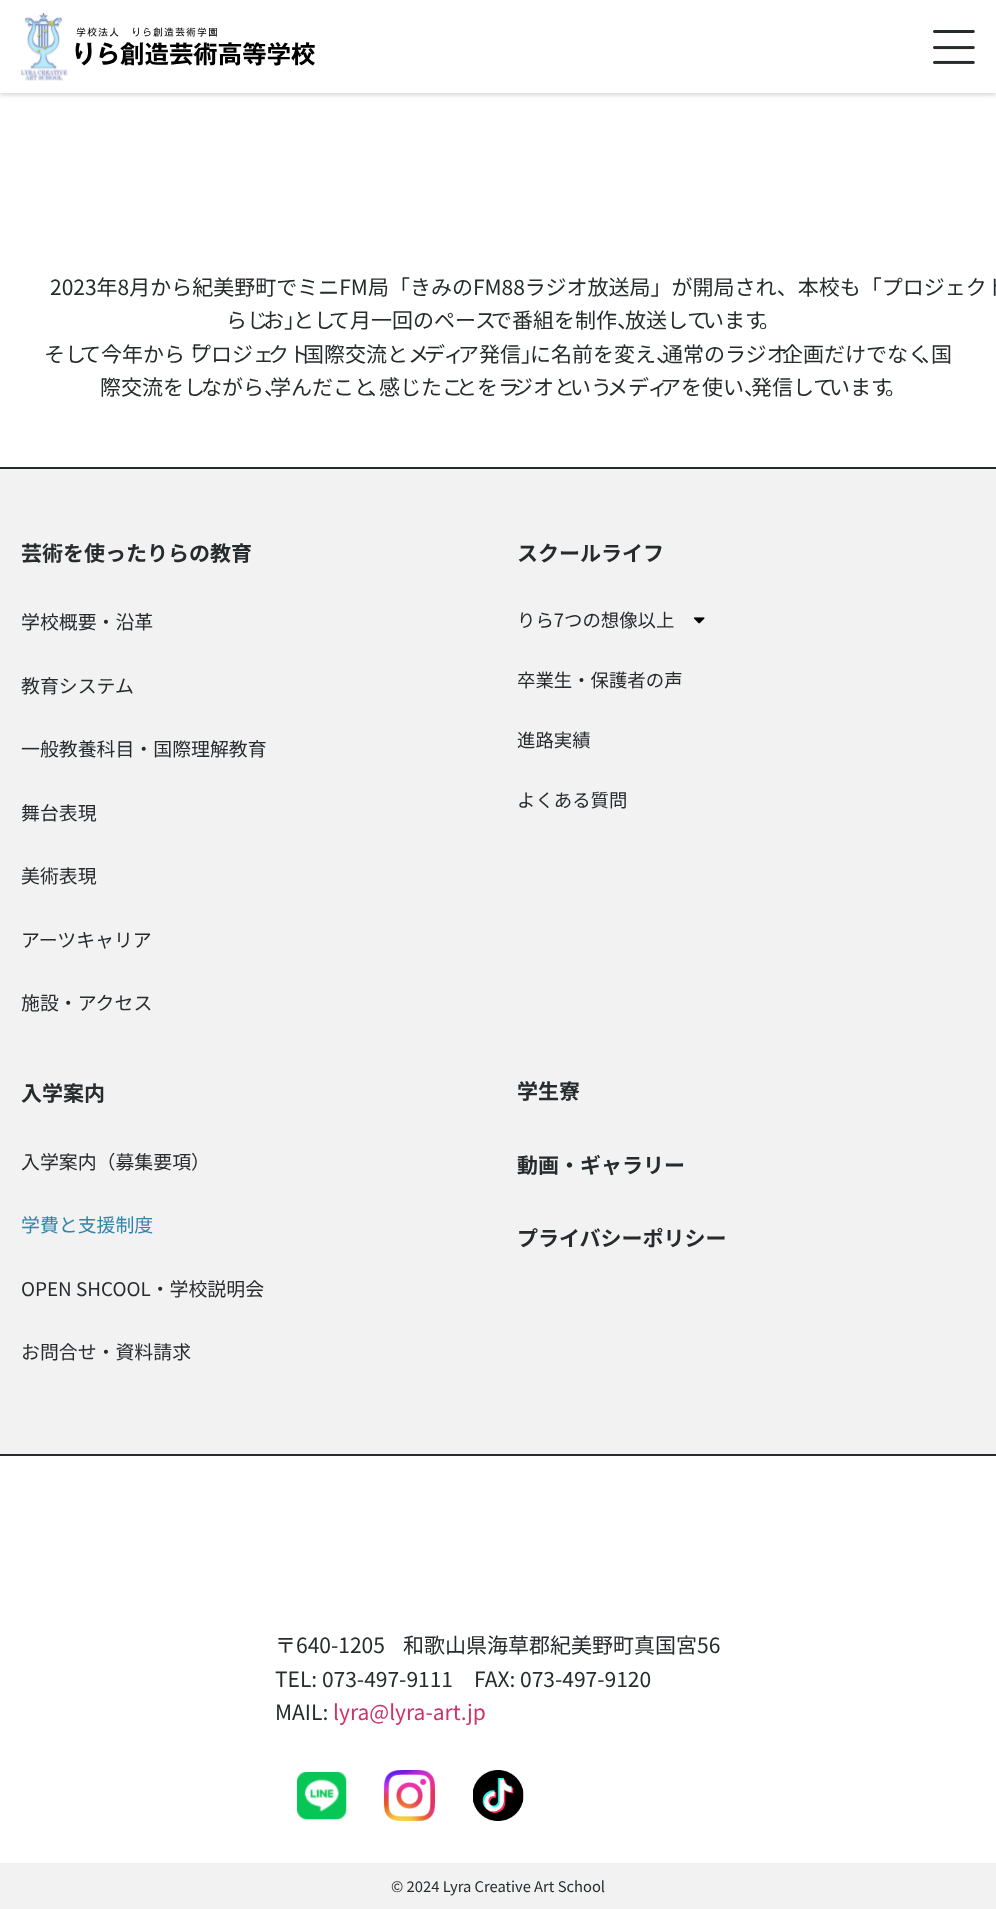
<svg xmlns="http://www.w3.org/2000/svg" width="996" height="1909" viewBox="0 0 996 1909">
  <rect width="100%" height="100%" fill="rgb(255,255,255)"/>
  <rect x="0" y="2" width="996" height="93" fill="rgba(0,0,0,0.16)" filter="blur(2px)"/>
  <rect x="0" y="0" width="996" height="93" fill="rgb(255,255,255)"/>
  <image x="21" y="12" width="294" height="69" href="pic1.png"/>
  <image x="933" y="30" width="42" height="34" href="pic2.png"/>
  <text x="50" y="295" font-family="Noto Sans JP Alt" font-size="21" fill="rgb(38,43,46)">2023年8月から紀美野町でミニFM局「きみのFM88ラジオ放送局」が開局され、本校も「プロジェクトり</text>
  <g font-family="Noto Sans JP" font-size="21" fill="rgb(38,43,46)">
    <text x="226" y="328">らじ</text>
    <text x="263" y="328">お」</text>
    <text x="293" y="328">とし</text>
    <text x="329" y="328">て月一回のペース</text>
    <text x="491" y="328">で番組を制作、</text>
    <text x="625" y="328">放送して</text>
    <text x="703" y="328">います</text>
    <text x="759" y="328">。</text>
    <text x="44" y="362">そし</text>
    <text x="80" y="362">て今年から</text>
    <text x="180" y="362">「</text>
    <text x="190" y="362">プロジェ</text>
    <text x="268" y="362">クト</text>
    <text x="303" y="362">国際交流とメ</text>
    <text x="424" y="362">ディ</text>
    <text x="458" y="362">ア発信」</text>
    <text x="530" y="362">に名前を変え、</text>
    <text x="662" y="362">通常のラジオ</text>
    <text x="782" y="362">企画だけでなく</text>
    <text x="921" y="362">、</text>
    <text x="931" y="362">国</text>
    <text x="100" y="395">際交流をし</text>
    <text x="201" y="395">ながら、</text>
    <text x="270" y="395">学んだこと</text>
    <text x="368" y="395">、</text>
    <text x="379" y="395">感じたこ</text>
    <text x="456" y="395">とをラ</text>
    <text x="512" y="395">ジオと</text>
    <text x="570" y="395">いう</text>
    <text x="607" y="395">メディ</text>
    <text x="660" y="395">アを使い、</text>
    <text x="751" y="395">発信して</text>
    <text x="829" y="395">います</text>
    <text x="885" y="395">。</text>
  </g>
  <rect x="0" y="469" width="996" height="985" fill="rgb(242,242,242)"/>
  <rect x="0" y="467" width="996" height="2" fill="rgb(38,43,46)"/>
  <rect x="0" y="1454" width="996" height="2" fill="rgb(38,43,46)"/>
  <text x="21" y="561" font-family="Noto Sans JP" font-size="21" font-weight="bold" fill="rgb(38,43,46)">芸術を使ったりらの教育</text>
  <g font-family="Noto Sans JP" font-size="18.9" fill="rgb(38,43,46)">
    <text x="21" y="629">学校概要・沿革</text>
    <text x="21" y="693">教育システム</text>
    <text x="21" y="756">一般教養科目・国際理解教育</text>
    <text x="21" y="820">舞台表現</text>
    <text x="21" y="883">美術表現</text>
    <text x="21" y="947">アーツキャリア</text>
    <text x="21" y="1010">施設・アクセス</text>
  </g>
  <text x="517" y="561" font-family="Noto Sans JP" font-size="21" font-weight="bold" fill="rgb(38,43,46)">スクールライフ</text>
  <text x="517" y="627" font-family="Noto Sans JP" font-size="18.4" fill="rgb(38,43,46)">りら7つの想像以上</text>
  <image x="693" y="617" width="12" height="7" href="pic3.png"/>
  <g font-family="Noto Sans JP" font-size="18.4" fill="rgb(38,43,46)">
    <text x="517" y="687">卒業生・保護者の声</text>
    <text x="517" y="747">進路実績</text>
    <text x="517" y="807">よくある質問</text>
  </g>
  <text x="21" y="1101" font-family="Noto Sans JP" font-size="21" font-weight="bold" fill="rgb(38,43,46)">入学案内</text>
  <text x="21" y="1169" font-family="Noto Sans JP" font-size="18.9" fill="rgb(38,43,46)">入学案内（募集要項）</text>
  <text x="21" y="1232" font-family="Noto Sans JP" font-size="18.9" fill="rgb(46,133,173)">学費と支援制度</text>
  <g font-family="Noto Sans JP" font-size="18.9" fill="rgb(38,43,46)">
    <text x="21" y="1296">OPEN SHCOOL・学校説明会</text>
    <text x="21" y="1359">お問合せ・資料請求</text>
  </g>
  <g font-family="Noto Sans JP" font-size="21" font-weight="bold" fill="rgb(38,43,46)">
    <text x="517" y="1099">学生寮</text>
    <text x="517" y="1173">動画・ギャラリー</text>
    <text x="517" y="1246">プライバシーポリシー</text>
  </g>
  <text x="275" y="1653" font-family="Noto Sans JP Alt" font-size="21" fill="rgb(38,43,46)">〒640-1205</text>
  <g font-family="Noto Sans JP" font-size="21" fill="rgb(38,43,46)">
    <text x="403" y="1653">和歌山県海草郡紀美野町真国宮56</text>
    <text x="275" y="1687">TEL: 073-497-9111</text>
    <text x="474" y="1687">FAX: 073-497-9120</text>
    <text x="275" y="1720">MAIL:</text>
  </g>
  <text x="333" y="1720" font-family="Noto Sans JP" font-size="21" fill="rgb(204,51,102)">lyra@lyra-art.jp</text>
  <image x="297" y="1772" width="50" height="48" href="pic4.png"/>
  <image x="384" y="1770" width="51" height="51" href="pic5.png"/>
  <image x="473" y="1770" width="51" height="51" href="pic6.png"/>
  <rect x="0" y="1863" width="996" height="46" fill="rgb(242,242,242)"/>
  <text x="391" y="1892" font-family="Noto Sans JP" font-size="14.75" fill="rgb(38,43,46)">© 2024 Lyra Creative Art School</text>
</svg>
